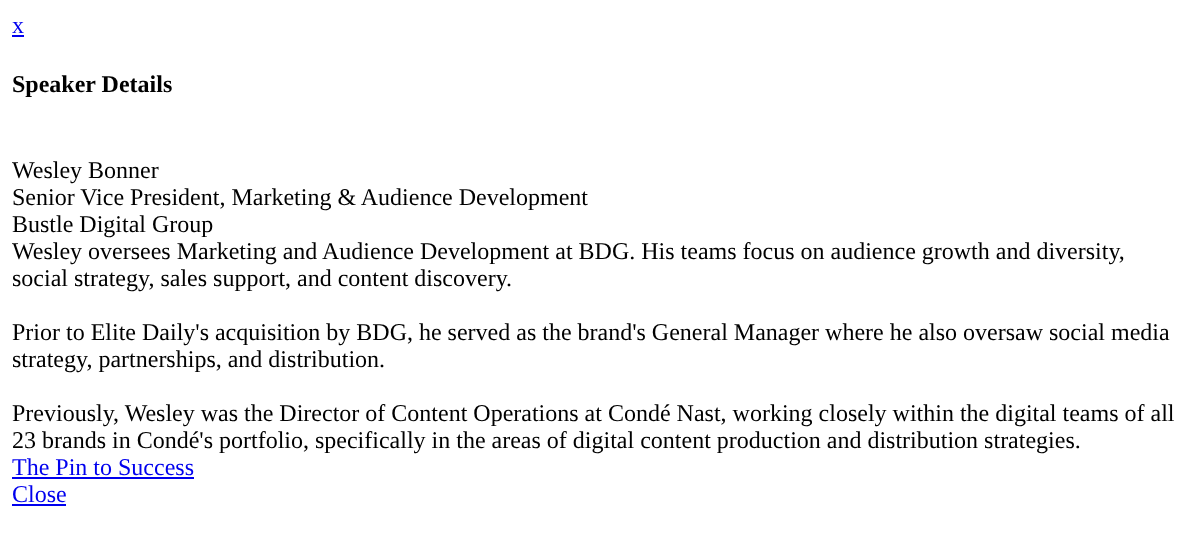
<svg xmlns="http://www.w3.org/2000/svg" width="1187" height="546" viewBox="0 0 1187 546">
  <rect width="100%" height="100%" fill="rgb(255,255,255)"/>
  <text x="12" y="33" font-family="Liberation Serif" font-size="24" fill="rgb(0,0,238)">x</text>
  <rect x="12" y="35" width="12" height="2" fill="rgb(0,0,238)"/>
  <text x="12" y="92" font-family="Liberation Serif" font-size="24" font-weight="bold" fill="rgb(0,0,0)">Speaker Details</text>
  <g font-family="Liberation Serif" font-size="24" fill="rgb(0,0,0)">
    <text>
      <tspan x="12" y="178">Wesley Bonner</tspan>
      <tspan x="12" y="205">Senior Vice President, Marketing &amp; Audience Development</tspan>
      <tspan x="12" y="232">Bustle Digital Group</tspan>
      <tspan x="12" y="259">Wesley oversees Marketing and Audience Development at BDG. His teams focus on audience growth and diversity,</tspan>
      <tspan x="12" y="286">social strategy, sales support, and content discovery.</tspan>
    </text>
    <text>
      <tspan x="12" y="340">Prior to Elite Daily's acquisition by BDG, he served as the brand's General Manager where he also oversaw social media</tspan>
      <tspan x="12" y="367">strategy, partnerships, and distribution.</tspan>
    </text>
    <text>
      <tspan x="12" y="421">Previously, Wesley was the Director of Content Operations at Condé Nast, working closely within the digital teams of all</tspan>
      <tspan x="12" y="448">23 brands in Condé's portfolio, specifically in the areas of digital content production and distribution strategies.</tspan>
    </text>
  </g>
  <text x="12" y="475" font-family="Liberation Serif" font-size="24" fill="rgb(0,0,238)">The Pin to Success</text>
  <rect x="12" y="477" width="182" height="2" fill="rgb(0,0,238)"/>
  <text x="12" y="502" font-family="Liberation Serif" font-size="24" fill="rgb(0,0,238)">Close</text>
  <rect x="12" y="504" width="54" height="2" fill="rgb(0,0,238)"/>
</svg>
